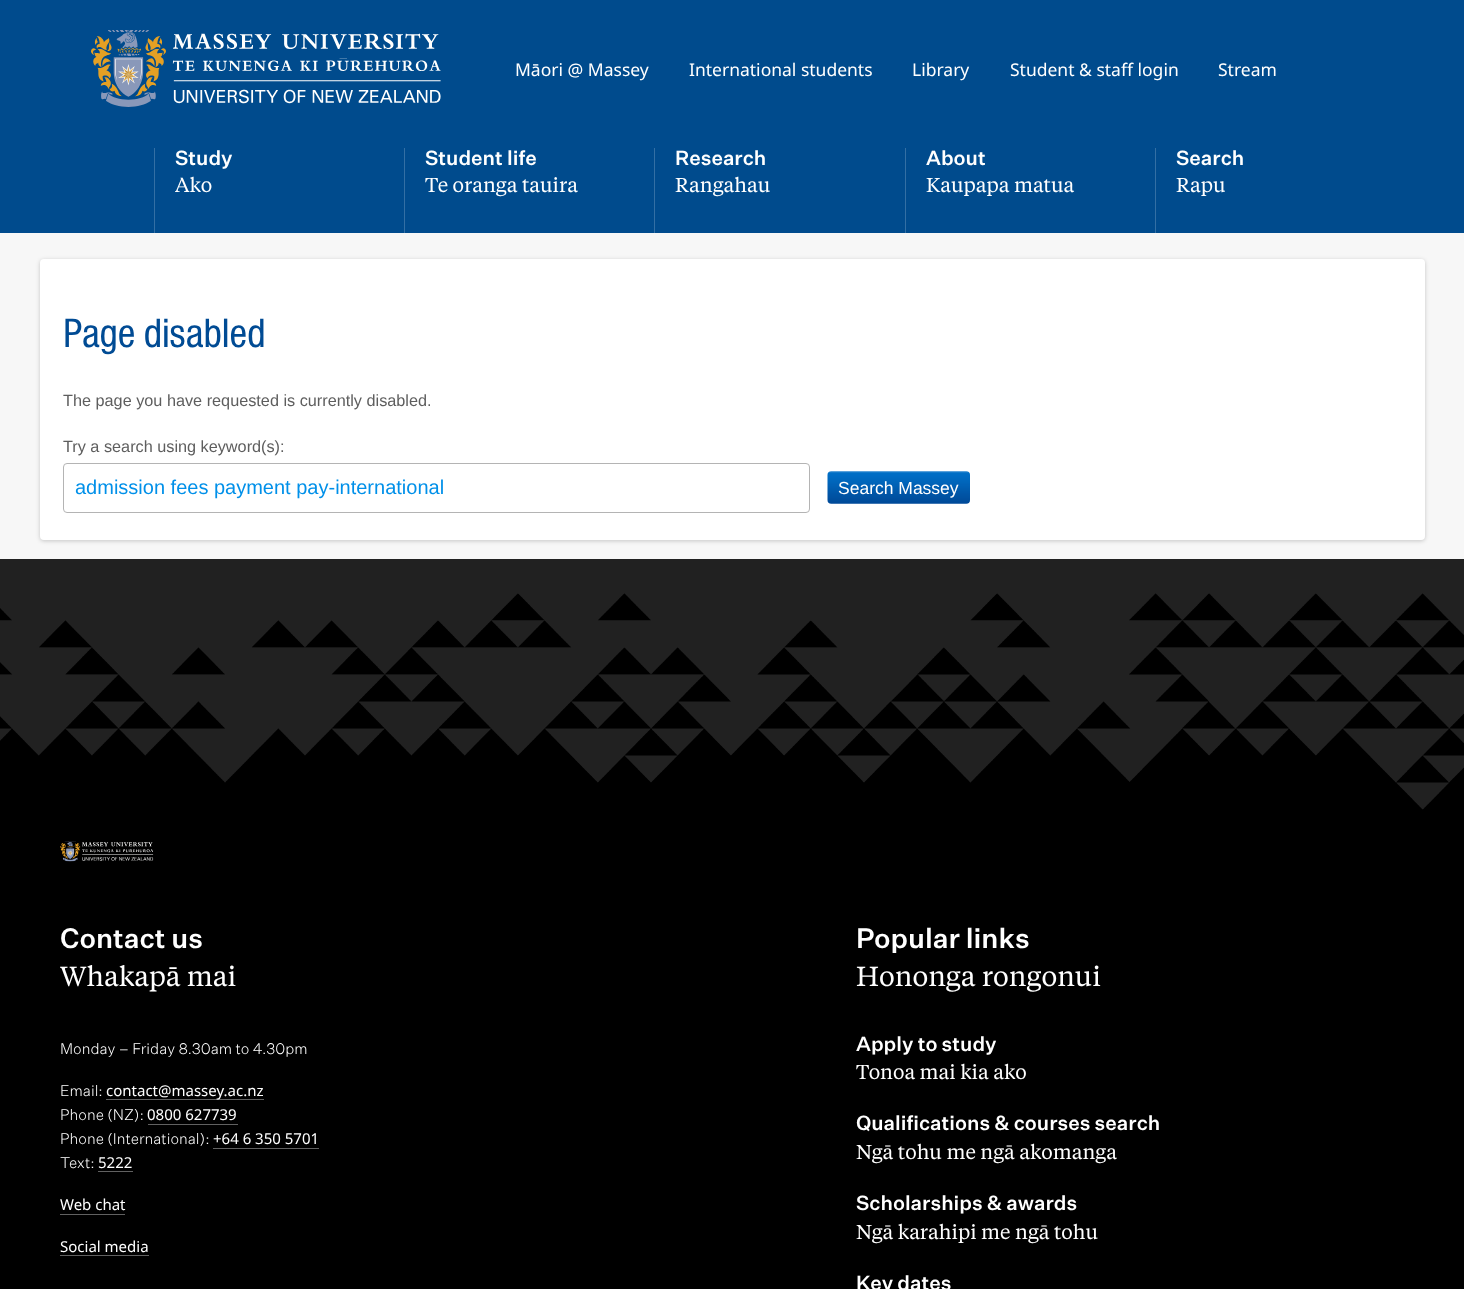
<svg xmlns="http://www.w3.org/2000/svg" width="1464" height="1289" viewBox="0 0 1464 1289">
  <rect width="100%" height="100%" fill="rgb(247,247,247)"/>
  <rect x="0" y="0" width="1464" height="233" fill="rgb(0,75,141)"/>
  <image x="91" y="30" width="350" height="77" href="pic1.png"/>
  <g font-family="Noto Sans" font-size="17.5" fill="rgb(255,255,255)">
    <text x="515" y="76">Māori @ Massey</text>
    <text x="689" y="76">International students</text>
    <text x="912" y="76">Library</text>
    <text x="1010" y="76">Student &amp; staff login</text>
    <text x="1218" y="76">Stream</text>
  </g>
  <rect x="154" y="148" width="1" height="85" fill="rgb(51,111,164)"/>
  <text x="175" y="165" font-family="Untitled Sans" font-size="20" font-weight="500" fill="rgb(255,255,255)">Study</text>
  <text x="175" y="192" font-family="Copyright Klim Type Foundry" font-size="20" fill="rgb(255,255,255)">Ako</text>
  <rect x="404" y="148" width="1" height="85" fill="rgb(51,111,164)"/>
  <text x="425" y="165" font-family="Untitled Sans" font-size="20" font-weight="500" fill="rgb(255,255,255)">Student life</text>
  <text x="425" y="192" font-family="Copyright Klim Type Foundry" font-size="20" fill="rgb(255,255,255)">Te oranga tauira</text>
  <rect x="654" y="148" width="1" height="85" fill="rgb(51,111,164)"/>
  <text x="675" y="165" font-family="Untitled Sans" font-size="20" font-weight="500" fill="rgb(255,255,255)">Research</text>
  <text x="675" y="192" font-family="Copyright Klim Type Foundry" font-size="20" fill="rgb(255,255,255)">Rangahau</text>
  <rect x="905" y="148" width="1" height="85" fill="rgb(51,111,164)"/>
  <text x="926" y="165" font-family="Untitled Sans" font-size="20" font-weight="500" fill="rgb(255,255,255)">About</text>
  <text x="926" y="192" font-family="Copyright Klim Type Foundry" font-size="20" fill="rgb(255,255,255)">Kaupapa matua</text>
  <rect x="1155" y="148" width="1" height="85" fill="rgb(51,111,164)"/>
  <text x="1176" y="165" font-family="Untitled Sans" font-size="20" font-weight="500" fill="rgb(255,255,255)">Search</text>
  <text x="1176" y="192" font-family="Copyright Klim Type Foundry" font-size="20" fill="rgb(255,255,255)">Rapu</text>
  <rect x="40" y="260" width="1385" height="281" rx="4" fill="rgba(0,0,0,0.2)" filter="blur(2px)"/>
  <rect x="40" y="259" width="1385" height="281" rx="4" fill="rgb(255,255,255)"/>
  <text x="63" y="347" font-family="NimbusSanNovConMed" font-size="42.5" fill="rgb(0,75,148)">Page disabled</text>
  <g font-family="Liberation Sans" font-size="16.25" fill="rgb(94,94,94)">
    <text x="63" y="406">The page you have requested is currently disabled.</text>
    <text x="63" y="452">Try a search using keyword(s):</text>
  </g>
  <rect x="63.5" y="463.5" width="746" height="49" rx="3.5" fill="none" stroke="rgb(180,180,180)"/>
  <text x="75" y="494" font-family="Liberation Sans" font-size="20" fill="rgb(0,144,233)">admission fees payment pay-international</text>
  <image x="827" y="471" width="143" height="33" href="pic2.png"/>
  <text x="838" y="494" font-family="Liberation Sans" font-size="17.5" fill="rgb(255,255,255)">Search Massey</text>
  <rect x="0" y="559" width="1464" height="730" fill="rgb(0,0,0)"/>
  <image x="0" y="559" width="1464" height="251" href="pic3.png"/>
  <image x="60" y="841" width="94" height="21" href="pic4.png"/>
  <text x="60" y="948" font-family="Untitled Sans" font-size="27.5" font-weight="500" fill="rgb(255,255,255)">Contact us</text>
  <text x="60" y="986" font-family="Copyright Klim Type Foundry" font-size="27.5" fill="rgb(255,255,255)">Whakapā mai</text>
  <g font-family="Untitled Sans" font-size="15" font-weight="300" fill="rgb(255,255,255)">
    <text x="60" y="1054">Monday – Friday 8.30am to 4.30pm</text>
    <text x="60" y="1096">Email:</text>
  </g>
  <rect x="106" y="1099" width="158" height="1" fill="rgb(97,97,97)"/>
  <text x="106" y="1096" font-family="Noto Sans" font-size="15" fill="rgb(255,255,255)">contact@massey.ac.nz</text>
  <text x="60" y="1120" font-family="Untitled Sans" font-size="15" font-weight="300" fill="rgb(255,255,255)">Phone (NZ):</text>
  <text x="147" y="1120" font-family="Noto Sans" font-size="15" fill="rgb(255,255,255)">0800 627739</text>
  <rect x="148" y="1124" width="90" height="1" fill="rgb(97,97,97)"/>
  <text x="60" y="1144" font-family="Untitled Sans" font-size="15" font-weight="300" fill="rgb(255,255,255)">Phone (International):</text>
  <text x="213" y="1144" font-family="Noto Sans" font-size="15" fill="rgb(255,255,255)">+64 6 350 5701</text>
  <rect x="213" y="1148" width="106" height="1" fill="rgb(97,97,97)"/>
  <text x="60" y="1168" font-family="Untitled Sans" font-size="15" font-weight="300" fill="rgb(255,255,255)">Text:</text>
  <text x="98" y="1168" font-family="Noto Sans" font-size="15" fill="rgb(255,255,255)">5222</text>
  <rect x="98" y="1171" width="35" height="1" fill="rgb(97,97,97)"/>
  <text x="60" y="1210" font-family="Noto Sans" font-size="15" fill="rgb(255,255,255)">Web chat</text>
  <rect x="60" y="1214" width="65" height="1" fill="rgb(97,97,97)"/>
  <text x="60" y="1252" font-family="Noto Sans" font-size="15" fill="rgb(255,255,255)">Social media</text>
  <rect x="60" y="1255" width="89" height="1" fill="rgb(97,97,97)"/>
  <text x="856" y="948" font-family="Untitled Sans" font-size="27.5" font-weight="500" fill="rgb(255,255,255)">Popular links</text>
  <text x="856" y="986" font-family="Copyright Klim Type Foundry" font-size="27.5" fill="rgb(255,255,255)">Hononga rongonui</text>
  <text x="856" y="1051" font-family="Untitled Sans" font-size="20" font-weight="500" fill="rgb(255,255,255)">Apply to study</text>
  <text x="856" y="1079" font-family="Copyright Klim Type Foundry" font-size="20" fill="rgb(255,255,255)">Tonoa mai kia ako</text>
  <text x="856" y="1130" font-family="Untitled Sans" font-size="20" font-weight="500" fill="rgb(255,255,255)">Qualifications &amp; courses search</text>
  <text x="856" y="1159" font-family="Copyright Klim Type Foundry" font-size="20" fill="rgb(255,255,255)">Ngā tohu me ngā akomanga</text>
  <text x="856" y="1210" font-family="Untitled Sans" font-size="20" font-weight="500" fill="rgb(255,255,255)">Scholarships &amp; awards</text>
  <text x="856" y="1239" font-family="Copyright Klim Type Foundry" font-size="20" fill="rgb(255,255,255)">Ngā karahipi me ngā tohu</text>
  <text x="856" y="1290" font-family="Untitled Sans" font-size="20" font-weight="500" fill="rgb(255,255,255)">Key dates</text>
</svg>
